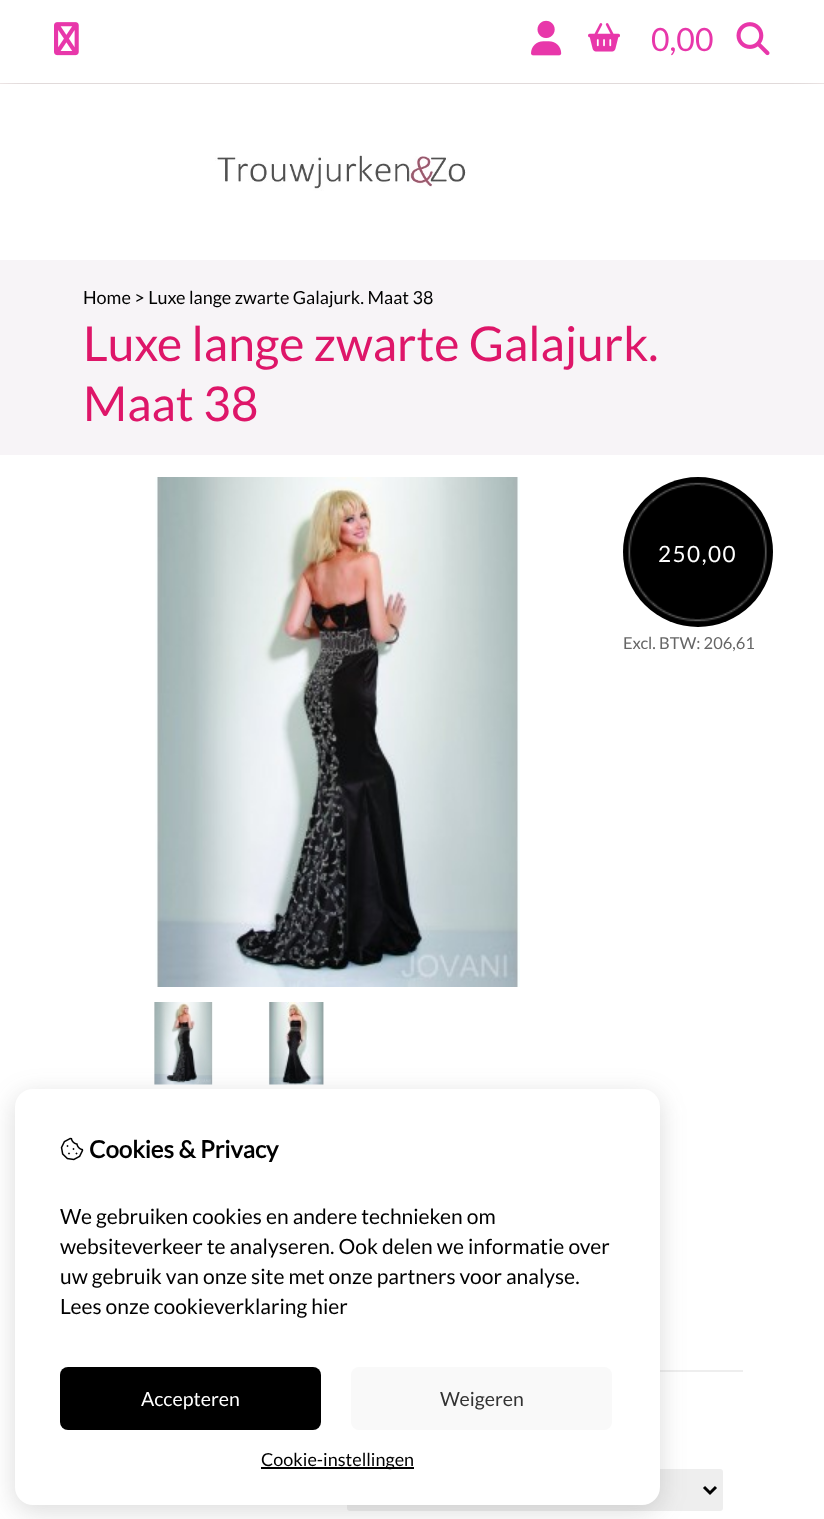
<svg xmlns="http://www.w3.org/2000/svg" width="824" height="1519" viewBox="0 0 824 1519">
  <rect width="100%" height="100%" fill="rgb(250,242,242)"/>
  <rect x="0" y="0" width="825" height="83" fill="rgba(0,0,0,0.2)" filter="blur(15px)"/>
  <rect x="0" y="0" width="824" height="83" fill="rgb(255,255,255)"/>
  <image x="54" y="22" width="25" height="34" href="pic1.png"/>
  <image x="531" y="20" width="31" height="36" href="pic2.png"/>
  <image x="588" y="23" width="32" height="29" href="pic3.png"/>
  <text x="651" y="51" font-family="Lato" font-size="32" fill="rgb(232,55,170)">0,00</text>
  <image x="736" y="22" width="34" height="34" href="pic4.png"/>
  <rect x="0" y="84" width="824" height="1435" fill="rgb(255,255,255)"/>
  <image x="215" y="155" width="251" height="36" href="pic5.png"/>
  <rect x="0" y="260" width="824" height="195" fill="rgb(247,244,247)"/>
  <text x="83" y="304" font-family="Lato" font-size="18" fill="rgb(0,0,0)">Home &gt; Luxe lange zwarte Galajurk. Maat 38</text>
  <g font-family="Lato" font-size="48" fill="rgb(222,22,105)">
    <text>
      <tspan x="83" y="361">Luxe lange zwarte Galajurk.</tspan>
      <tspan x="83" y="421">Maat 38</tspan>
    </text>
  </g>
  <image x="155" y="477" width="365" height="510" href="pic6.png"/>
  <image x="154" y="1002" width="59" height="83" href="pic7.png"/>
  <image x="268" y="1002" width="56" height="83" href="pic8.png"/>
  <circle cx="698" cy="552" r="75" fill="rgb(0,0,0)"/>
  <image x="628" y="482" width="139" height="140" href="pic9.png"/>
  <text x="658" y="562" font-family="Lato" font-size="22.5" letter-spacing="1.5" fill="rgb(255,255,255)">250,00</text>
  <text x="623" y="649" font-family="Lato" font-size="16.5" fill="rgb(102,102,102)">Excl. BTW: 206,61</text>
  <rect x="660" y="1370" width="83" height="2" fill="rgb(238,238,238)"/>
  <rect x="348" y="1470" width="374" height="40" rx="2" fill="rgb(238,238,238)" stroke="rgb(238,238,238)" stroke-width="2"/>
  <path d="M704 1487L710 1493L716 1487" fill="none" stroke="rgb(0,0,0)" stroke-width="3"/>
  <rect x="15" y="1095" width="645" height="416" rx="18" fill="rgba(76,76,76,0.2)" filter="blur(13px)"/>
  <rect x="15" y="1089" width="645" height="416" rx="18" fill="rgb(255,255,255)"/>
  <image x="60" y="1137" width="24" height="24" href="pic10.png"/>
  <text x="89" y="1158" font-family="Lato" font-size="24" font-weight="bold" fill="rgb(0,0,0)">Cookies &amp; Privacy</text>
  <g font-family="Lato" font-size="21" fill="rgb(0,0,0)">
    <text>
      <tspan x="60" y="1224">We gebruiken cookies en andere technieken om</tspan>
      <tspan x="60" y="1254">websiteverkeer te analyseren. Ook delen we informatie over</tspan>
      <tspan x="60" y="1284">uw gebruik van onze site met onze partners voor analyse.</tspan>
      <tspan x="60" y="1314">Lees onze cookieverklaring hier</tspan>
    </text>
  </g>
  <rect x="60" y="1367" width="261" height="63" rx="8" fill="rgb(0,0,0)"/>
  <text x="141" y="1406" font-family="Lato" font-size="19.5" fill="rgb(255,255,255)">Accepteren</text>
  <rect x="351" y="1367" width="261" height="63" rx="8" fill="rgb(249,249,249)"/>
  <text x="440" y="1406" font-family="Lato" font-size="19.5" fill="rgb(51,51,51)">Weigeren</text>
  <rect x="261" y="1467" width="153" height="2" fill="rgb(0,0,0)"/>
  <text x="261" y="1466" font-family="Lato" font-size="18" fill="rgb(0,0,0)">Cookie-instellingen</text>
</svg>
